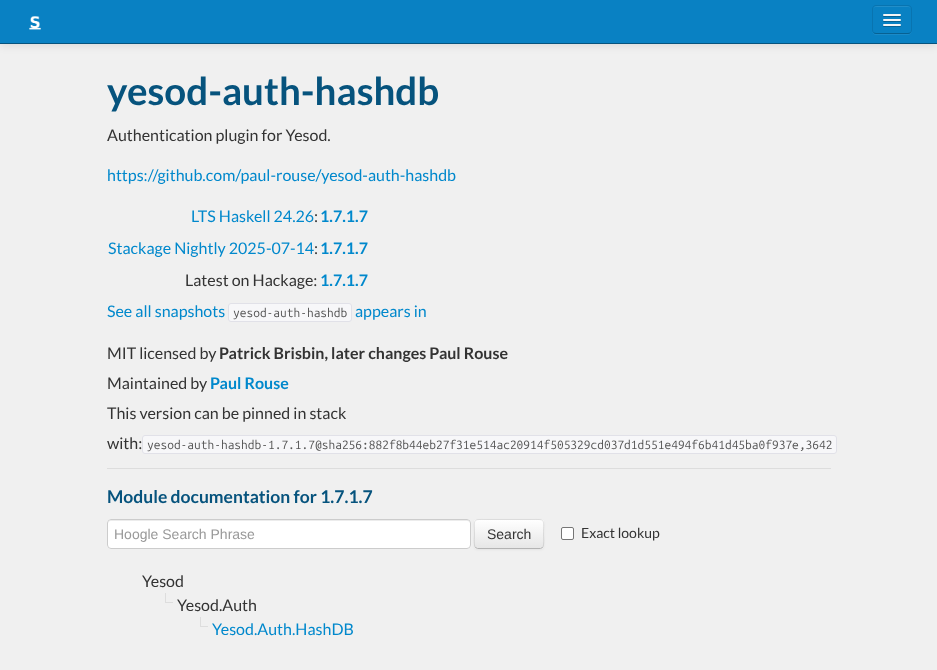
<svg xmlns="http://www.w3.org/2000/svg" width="937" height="670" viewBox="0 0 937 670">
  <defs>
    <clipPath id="clip1"><rect x="474" y="519" width="70" height="30" rx="4"/></clipPath>
    <linearGradient id="g1" gradientUnits="userSpaceOnUse" x1="509" y1="520" x2="509" y2="548"><stop offset="0" stop-color="rgb(255,255,255)"/><stop offset="1" stop-color="rgb(230,230,230)"/></linearGradient>
  </defs>
  <rect width="100%" height="100%" fill="rgb(240,240,240)"/>
  <rect x="0" y="1" width="937" height="44" fill="rgba(0,0,0,0.1)" filter="blur(5px)"/>
  <rect x="0" y="0" width="937" height="43" fill="rgb(9,129,195)"/>
  <rect x="0" y="43" width="937" height="1" fill="rgb(6,83,125)"/>
  <image x="29" y="16" width="12" height="14" href="pic1.png"/>
  <path d="M872 30C872 36 877 35 881 35H903C907 35 912 36 912 30C912 32 910 34 908 34H876C874 34 872 32 872 30Z" fill="rgb(27,138,200)"/>
  <rect x="872" y="5" width="40" height="29" rx="4" fill="rgb(9,129,195)"/>
  <path d="M876 7H908C910 7 911 8 911 10C911 5 907 6 902.5 6H881.5C877 6 873 5 873 10C873 8 874 7 876 7Z" fill="rgb(34,142,201)"/>
  <path d="M910.5 32.5C910 33 909 33.5 908 33.5H876C875 33.5 874 33 873.5 32.5" fill="none" stroke="rgb(7,97,146)"/>
  <path d="M873.5 32.5C873 32 872.5 31 872.5 30V9C872.5 8 873 7 873.5 6.5C874 6 875 5.5 876 5.5H908C909 5.5 910 6 910.5 6.5C911 7 911.5 8 911.5 9V30C911.5 31 911 32 910.5 32.5" fill="none" stroke="rgb(8,116,176)"/>
  <path d="M883 15.5C882 17.5 886.5 17 886.5 17H897.5C897.5 17 902 17.5 901 15.5C900 16.5 893.5 16 892 16C890.5 16 884 16.5 883 15.5Z" fill="rgb(7,97,146)"/>
  <rect x="883" y="14" width="18" height="2" rx="1" fill="rgb(245,245,245)"/>
  <path d="M883 20.5C882 22.5 886.5 22 886.5 22H897.5C897.5 22 902 22.5 901 20.5C900 21.5 893.5 21 892 21C890.5 21 884 21.5 883 20.5Z" fill="rgb(7,97,146)"/>
  <rect x="883" y="19" width="18" height="2" rx="1" fill="rgb(245,245,245)"/>
  <path d="M883 25.5C882 27.5 886.5 27 886.5 27H897.5C897.5 27 902 27.5 901 25.5C900 26.5 893.5 26 892 26C890.5 26 884 26.5 883 25.5Z" fill="rgb(7,97,146)"/>
  <rect x="883" y="24" width="18" height="2" rx="1" fill="rgb(245,245,245)"/>
  <text x="107" y="105" font-family="Lato" font-size="38.5" font-weight="bold" fill="rgb(6,83,125)">yesod-auth-hashdb</text>
  <text x="107" y="141" font-family="Lato" font-size="16" fill="rgb(51,51,51)">Authentication plugin for Yesod.</text>
  <g font-family="Lato" font-size="16" fill="rgb(0,136,204)">
    <text x="107" y="181">https://github.com/paul-rouse/yesod-auth-hashdb</text>
    <text x="191" y="222">LTS Haskell 24.26</text>
  </g>
  <text x="314" y="222" font-family="Lato" font-size="16" fill="rgb(51,51,51)">:</text>
  <text x="320" y="222" font-family="Lato" font-size="16" font-weight="bold" fill="rgb(0,136,204)">1.7.1.7</text>
  <text x="108" y="254" font-family="Lato" font-size="16" fill="rgb(0,136,204)">Stackage Nightly 2025-07-14</text>
  <text x="314" y="254" font-family="Lato" font-size="16" fill="rgb(51,51,51)">:</text>
  <text x="320" y="254" font-family="Lato" font-size="16" font-weight="bold" fill="rgb(0,136,204)">1.7.1.7</text>
  <text x="185" y="286" font-family="Lato" font-size="16" fill="rgb(51,51,51)">Latest on Hackage:</text>
  <text x="320" y="286" font-family="Lato" font-size="16" font-weight="bold" fill="rgb(0,136,204)">1.7.1.7</text>
  <text x="107" y="317" font-family="Lato" font-size="16" fill="rgb(0,136,204)">See all snapshots</text>
  <rect x="228.5" y="303.5" width="123" height="18" rx="2.5" fill="rgb(247,247,249)" stroke="rgb(225,225,232)"/>
  <text x="233" y="317" font-family="Ubuntu Mono" font-size="12" fill="rgb(85,85,85)">yesod-auth-hashdb</text>
  <text x="355" y="317" font-family="Lato" font-size="16" fill="rgb(0,136,204)">appears in</text>
  <text x="107" y="359" font-family="Lato" font-size="16" fill="rgb(51,51,51)">MIT licensed by</text>
  <text x="219" y="359" font-family="Lato" font-size="16" font-weight="bold" fill="rgb(51,51,51)">Patrick Brisbin, later changes Paul Rouse</text>
  <text x="107" y="389" font-family="Lato" font-size="16" fill="rgb(51,51,51)">Maintained by</text>
  <text x="210" y="389" font-family="Lato" font-size="16" font-weight="bold" fill="rgb(0,136,204)">Paul Rouse</text>
  <g font-family="Lato" font-size="16" fill="rgb(51,51,51)">
    <text>
      <tspan x="107" y="419">This version can be pinned in stack</tspan>
      <tspan x="107" y="449">with:</tspan>
    </text>
  </g>
  <rect x="142.5" y="435.5" width="694" height="18" rx="2.5" fill="rgb(247,247,249)" stroke="rgb(225,225,232)"/>
  <text x="147" y="449" font-family="Ubuntu Mono" font-size="12" fill="rgb(85,85,85)">yesod-auth-hashdb-1.7.1.7@sha256:882f8b44eb27f31e514ac20914f505329cd037d1d551e494f6b41d45ba0f937e,3642</text>
  <rect x="107" y="468" width="724" height="1" fill="rgb(221,221,221)"/>
  <text x="107" y="503" font-family="Lato" font-size="17.5" font-weight="bold" fill="rgb(6,83,125)">Module documentation for 1.7.1.7</text>
  <rect x="107" y="519" width="364" height="30" rx="4" fill="rgb(255,255,255)"/>
  <path d="M111 521H467C469 521 470 522 470 524C470 522 469 520 467 520H111L109 521L108 524C108 522 109 521 111 521Z" fill="rgb(236,236,236)"/>
  <rect x="107.5" y="519.5" width="363" height="29" rx="3.5" fill="none" stroke="rgb(204,204,204)"/>
  <text x="114" y="539" font-family="Liberation Sans" font-size="14" fill="rgb(153,153,153)">Hoogle Search Phrase</text>
  <rect x="474" y="520" width="70" height="30" rx="4" fill="rgba(0,0,0,0.05)" filter="blur(1px)"/>
  <rect x="474" y="519" width="70" height="30" rx="4" fill="rgb(245,245,245)"/>
  <g clip-path="url(#clip1)">
    <rect x="474" y="520" width="70" height="28" fill="url(#g1)"/>
  </g>
  <path d="M542.5 547.5L540.5 548.5H477.5L475.5 547.5" fill="none" stroke="rgb(179,179,179)"/>
  <path d="M475.5 547.5C473.5 545.5 474.5 537 474.5 534C474.5 518 472 519.5 488.5 519.5H529.5C546 519.5 543.5 518 543.5 534C543.5 537 544.5 545.5 542.5 547.5" fill="none" stroke="rgba(0,0,0,0.1)"/>
  <text x="487" y="539" font-family="Liberation Sans" font-size="14" fill="rgb(51,51,51)">Search</text>
  <rect x="561.5" y="527.5" width="12" height="12" rx="1.5" fill="rgb(255,255,255)" stroke="rgb(118,118,118)"/>
  <text x="581" y="538" font-family="Lato" font-size="14" fill="rgb(51,51,51)">Exact lookup</text>
  <text x="142" y="587" font-family="Lato" font-size="16" fill="rgb(51,51,51)">Yesod</text>
  <rect x="165" y="593" width="1" height="9" fill="rgb(221,221,221)"/>
  <rect x="165" y="602" width="8" height="1" fill="rgb(221,221,221)"/>
  <text x="177" y="611" font-family="Lato" font-size="16" fill="rgb(51,51,51)">Yesod.Auth</text>
  <rect x="200" y="617" width="1" height="9" fill="rgb(221,221,221)"/>
  <rect x="200" y="626" width="8" height="1" fill="rgb(221,221,221)"/>
  <text x="212" y="635" font-family="Lato" font-size="16" fill="rgb(0,136,204)">Yesod.Auth.HashDB</text>
</svg>
